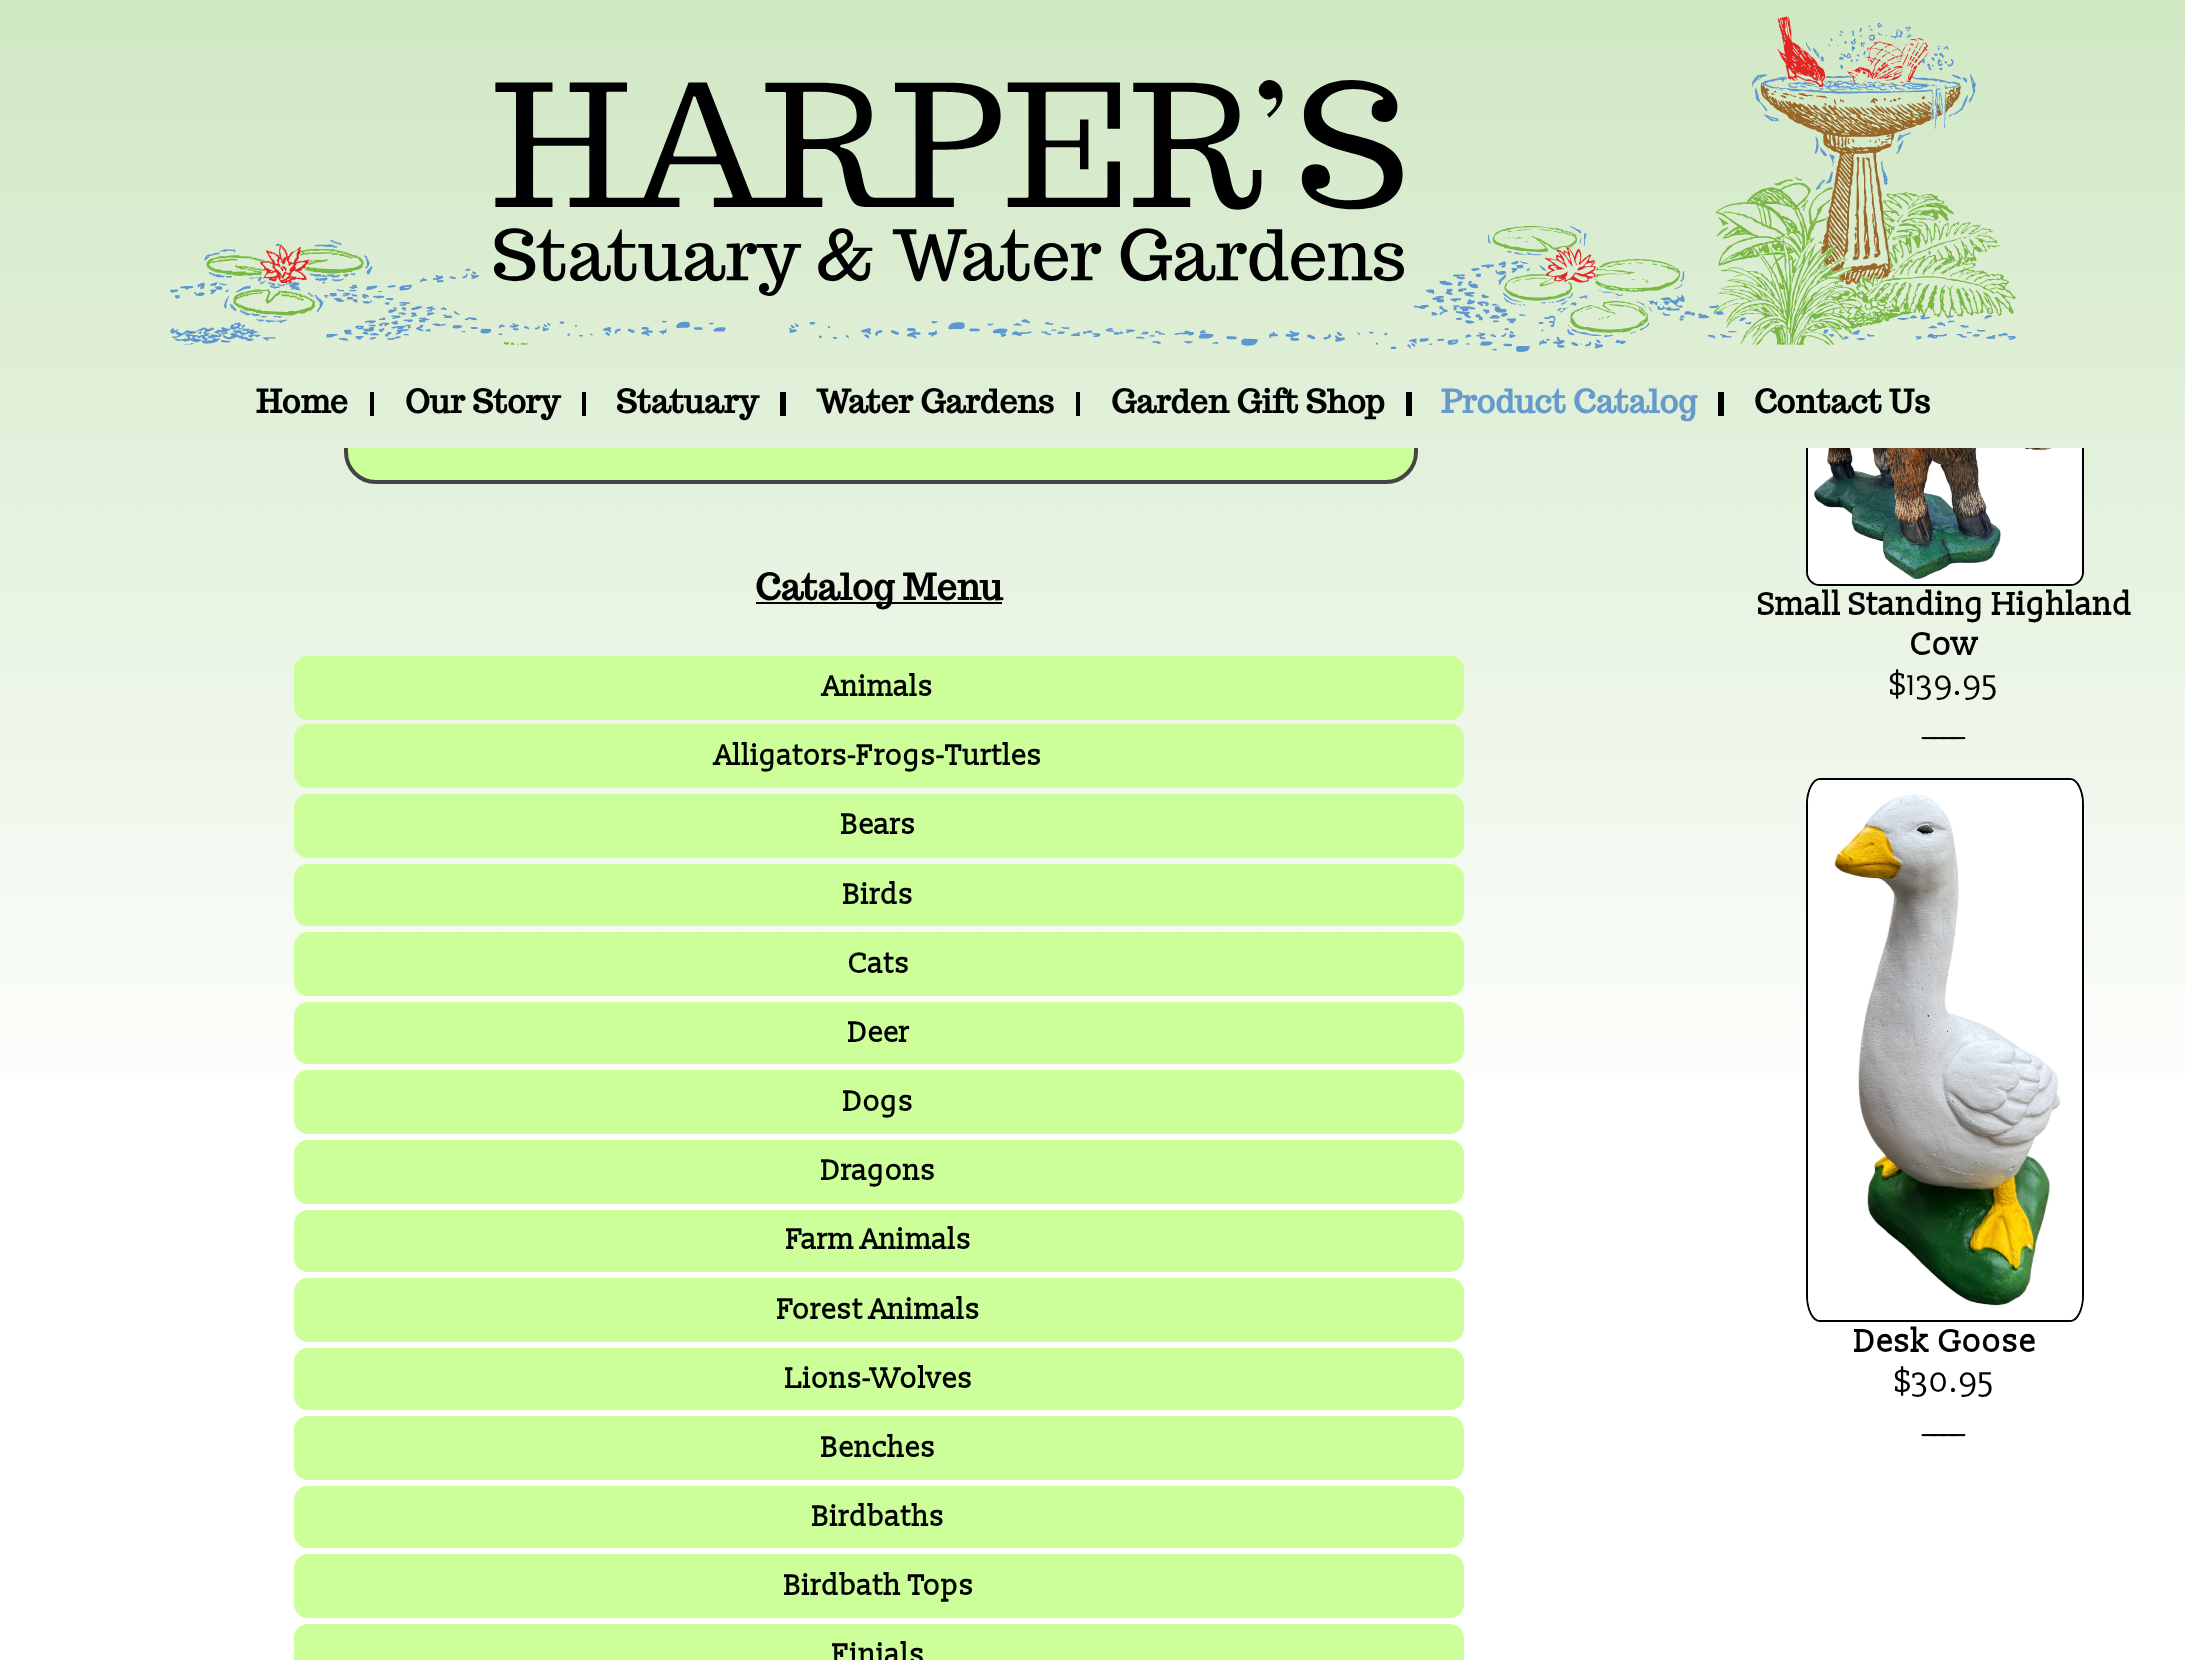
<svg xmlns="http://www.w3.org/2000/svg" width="2185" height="1660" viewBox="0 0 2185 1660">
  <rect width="100%" height="100%" fill="rgb(255,255,255)"/>
  <image x="0" y="0" width="2185" height="1073" href="pic1.png"/>
  <rect x="346" y="374" width="1070" height="108" rx="30" fill="rgb(204,255,153)" stroke="rgb(68,68,68)" stroke-width="4"/>
  <rect x="1807" y="301" width="276" height="284" rx="13" fill="none" stroke="rgb(0,0,0)" stroke-width="2"/>
  <image x="344" y="0" width="1762" height="448" href="pic2.png"/>
  <image x="170" y="16" width="1846" height="336" href="pic3.png"/>
  <image x="494" y="80" width="910" height="216" href="pic4.png"/>
  <text x="256" y="413" font-family="Trocchi" font-size="32" font-weight="bold" fill="rgb(0,0,0)">Home</text>
  <rect x="370" y="392" width="4" height="24" fill="rgb(0,0,0)"/>
  <text x="405" y="413" font-family="Trocchi" font-size="32" font-weight="bold" fill="rgb(0,0,0)">Our Story</text>
  <rect x="582" y="392" width="4" height="24" fill="rgb(0,0,0)"/>
  <text x="616" y="413" font-family="Trocchi" font-size="32" font-weight="bold" fill="rgb(0,0,0)">Statuary</text>
  <rect x="780" y="392" width="6" height="24" fill="rgb(0,0,0)"/>
  <text x="816" y="413" font-family="Trocchi" font-size="32" font-weight="bold" fill="rgb(0,0,0)">Water Gardens</text>
  <rect x="1076" y="392" width="4" height="24" fill="rgb(0,0,0)"/>
  <text x="1111" y="413" font-family="Trocchi" font-size="32" font-weight="bold" fill="rgb(0,0,0)">Garden Gift Shop</text>
  <rect x="1406" y="392" width="6" height="24" fill="rgb(0,0,0)"/>
  <text x="1441" y="413" font-family="Trocchi" font-size="32" font-weight="bold" fill="rgb(102,153,204)">Product Catalog</text>
  <rect x="1718" y="392" width="6" height="24" fill="rgb(0,0,0)"/>
  <text x="1754" y="413" font-family="Trocchi" font-size="32" font-weight="bold" fill="rgb(0,0,0)">Contact Us</text>
  <rect x="756" y="602" width="246" height="2" fill="rgb(0,0,0)"/>
  <text x="755" y="600" font-family="Trocchi" font-size="36" font-weight="bold" fill="rgb(0,0,0)">Catalog Menu</text>
  <rect x="294" y="656" width="1170" height="64" rx="14" fill="rgb(204,255,153)"/>
  <text x="823" y="696" font-family="'Slabo 13px'" font-size="28.75" font-weight="bold" fill="rgb(0,0,0)">Animals</text>
  <rect x="294" y="724" width="1170" height="64" rx="14" fill="rgb(204,255,153)"/>
  <text x="715" y="765" font-family="'Slabo 13px'" font-size="28.75" font-weight="bold" fill="rgb(0,0,0)">Alligators-Frogs-Turtles</text>
  <rect x="294" y="794" width="1170" height="64" rx="14" fill="rgb(204,255,153)"/>
  <text x="841" y="834" font-family="'Slabo 13px'" font-size="28.75" font-weight="bold" fill="rgb(0,0,0)">Bears</text>
  <rect x="294" y="864" width="1170" height="62" rx="14" fill="rgb(204,255,153)"/>
  <text x="843" y="904" font-family="'Slabo 13px'" font-size="28.75" font-weight="bold" fill="rgb(0,0,0)">Birds</text>
  <rect x="294" y="932" width="1170" height="64" rx="14" fill="rgb(204,255,153)"/>
  <text x="848" y="973" font-family="'Slabo 13px'" font-size="28.75" font-weight="bold" fill="rgb(0,0,0)">Cats</text>
  <rect x="294" y="1002" width="1170" height="62" rx="14" fill="rgb(204,255,153)"/>
  <text x="848" y="1042" font-family="'Slabo 13px'" font-size="28.75" font-weight="bold" fill="rgb(0,0,0)">Deer</text>
  <rect x="294" y="1070" width="1170" height="64" rx="14" fill="rgb(204,255,153)"/>
  <text x="843" y="1111" font-family="'Slabo 13px'" font-size="28.75" font-weight="bold" fill="rgb(0,0,0)">Dogs</text>
  <rect x="294" y="1140" width="1170" height="64" rx="14" fill="rgb(204,255,153)"/>
  <text x="821" y="1180" font-family="'Slabo 13px'" font-size="28.75" font-weight="bold" fill="rgb(0,0,0)">Dragons</text>
  <rect x="294" y="1210" width="1170" height="62" rx="14" fill="rgb(204,255,153)"/>
  <text x="786" y="1249" font-family="'Slabo 13px'" font-size="28.75" font-weight="bold" fill="rgb(0,0,0)">Farm Animals</text>
  <rect x="294" y="1278" width="1170" height="64" rx="14" fill="rgb(204,255,153)"/>
  <text x="777" y="1319" font-family="'Slabo 13px'" font-size="28.75" font-weight="bold" fill="rgb(0,0,0)">Forest Animals</text>
  <rect x="294" y="1348" width="1170" height="62" rx="14" fill="rgb(204,255,153)"/>
  <text x="785" y="1388" font-family="'Slabo 13px'" font-size="28.75" font-weight="bold" fill="rgb(0,0,0)">Lions-Wolves</text>
  <rect x="294" y="1416" width="1170" height="64" rx="14" fill="rgb(204,255,153)"/>
  <text x="821" y="1457" font-family="'Slabo 13px'" font-size="28.75" font-weight="bold" fill="rgb(0,0,0)">Benches</text>
  <rect x="294" y="1486" width="1170" height="62" rx="14" fill="rgb(204,255,153)"/>
  <text x="812" y="1526" font-family="'Slabo 13px'" font-size="28.75" font-weight="bold" fill="rgb(0,0,0)">Birdbaths</text>
  <rect x="294" y="1554" width="1170" height="64" rx="14" fill="rgb(204,255,153)"/>
  <text x="784" y="1595" font-family="'Slabo 13px'" font-size="28.75" font-weight="bold" fill="rgb(0,0,0)">Birdbath Tops</text>
  <rect x="294" y="1624" width="1170" height="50" rx="14" fill="rgb(204,255,153)"/>
  <text x="832" y="1664" font-family="'Slabo 13px'" font-size="28.75" font-weight="bold" fill="rgb(0,0,0)">Finials</text>
  <image x="1808" y="448" width="274" height="136" href="pic5.png"/>
  <g font-family="'Slabo 13px'" font-size="32" font-weight="bold" fill="rgb(0,0,0)">
    <text x="1758" y="615">Small Standing Highland</text>
    <text x="1910" y="655">Cow</text>
  </g>
  <g font-family="'Slabo 13px'" font-size="32" fill="rgb(0,0,0)">
    <text x="1890" y="695">$139.95</text>
    <text x="1925" y="735">____</text>
  </g>
  <path d="M1820 779H2070C2077 779 2083 790.5 2083 805V1295C2083 1309.5 2077 1321 2070 1321H1820C1813 1321 1807 1309.5 1807 1295V805C1807 790.5 1813 779 1820 779Z" fill="none" stroke="rgb(0,0,0)" stroke-width="2"/>
  <image x="1808" y="780" width="274" height="540" href="pic6.png"/>
  <text x="1854" y="1352" font-family="'Slabo 13px'" font-size="32" font-weight="bold" fill="rgb(0,0,0)">Desk Goose</text>
  <g font-family="'Slabo 13px'" font-size="32" fill="rgb(0,0,0)">
    <text x="1895" y="1392">$30.95</text>
    <text x="1925" y="1432">____</text>
  </g>
</svg>
